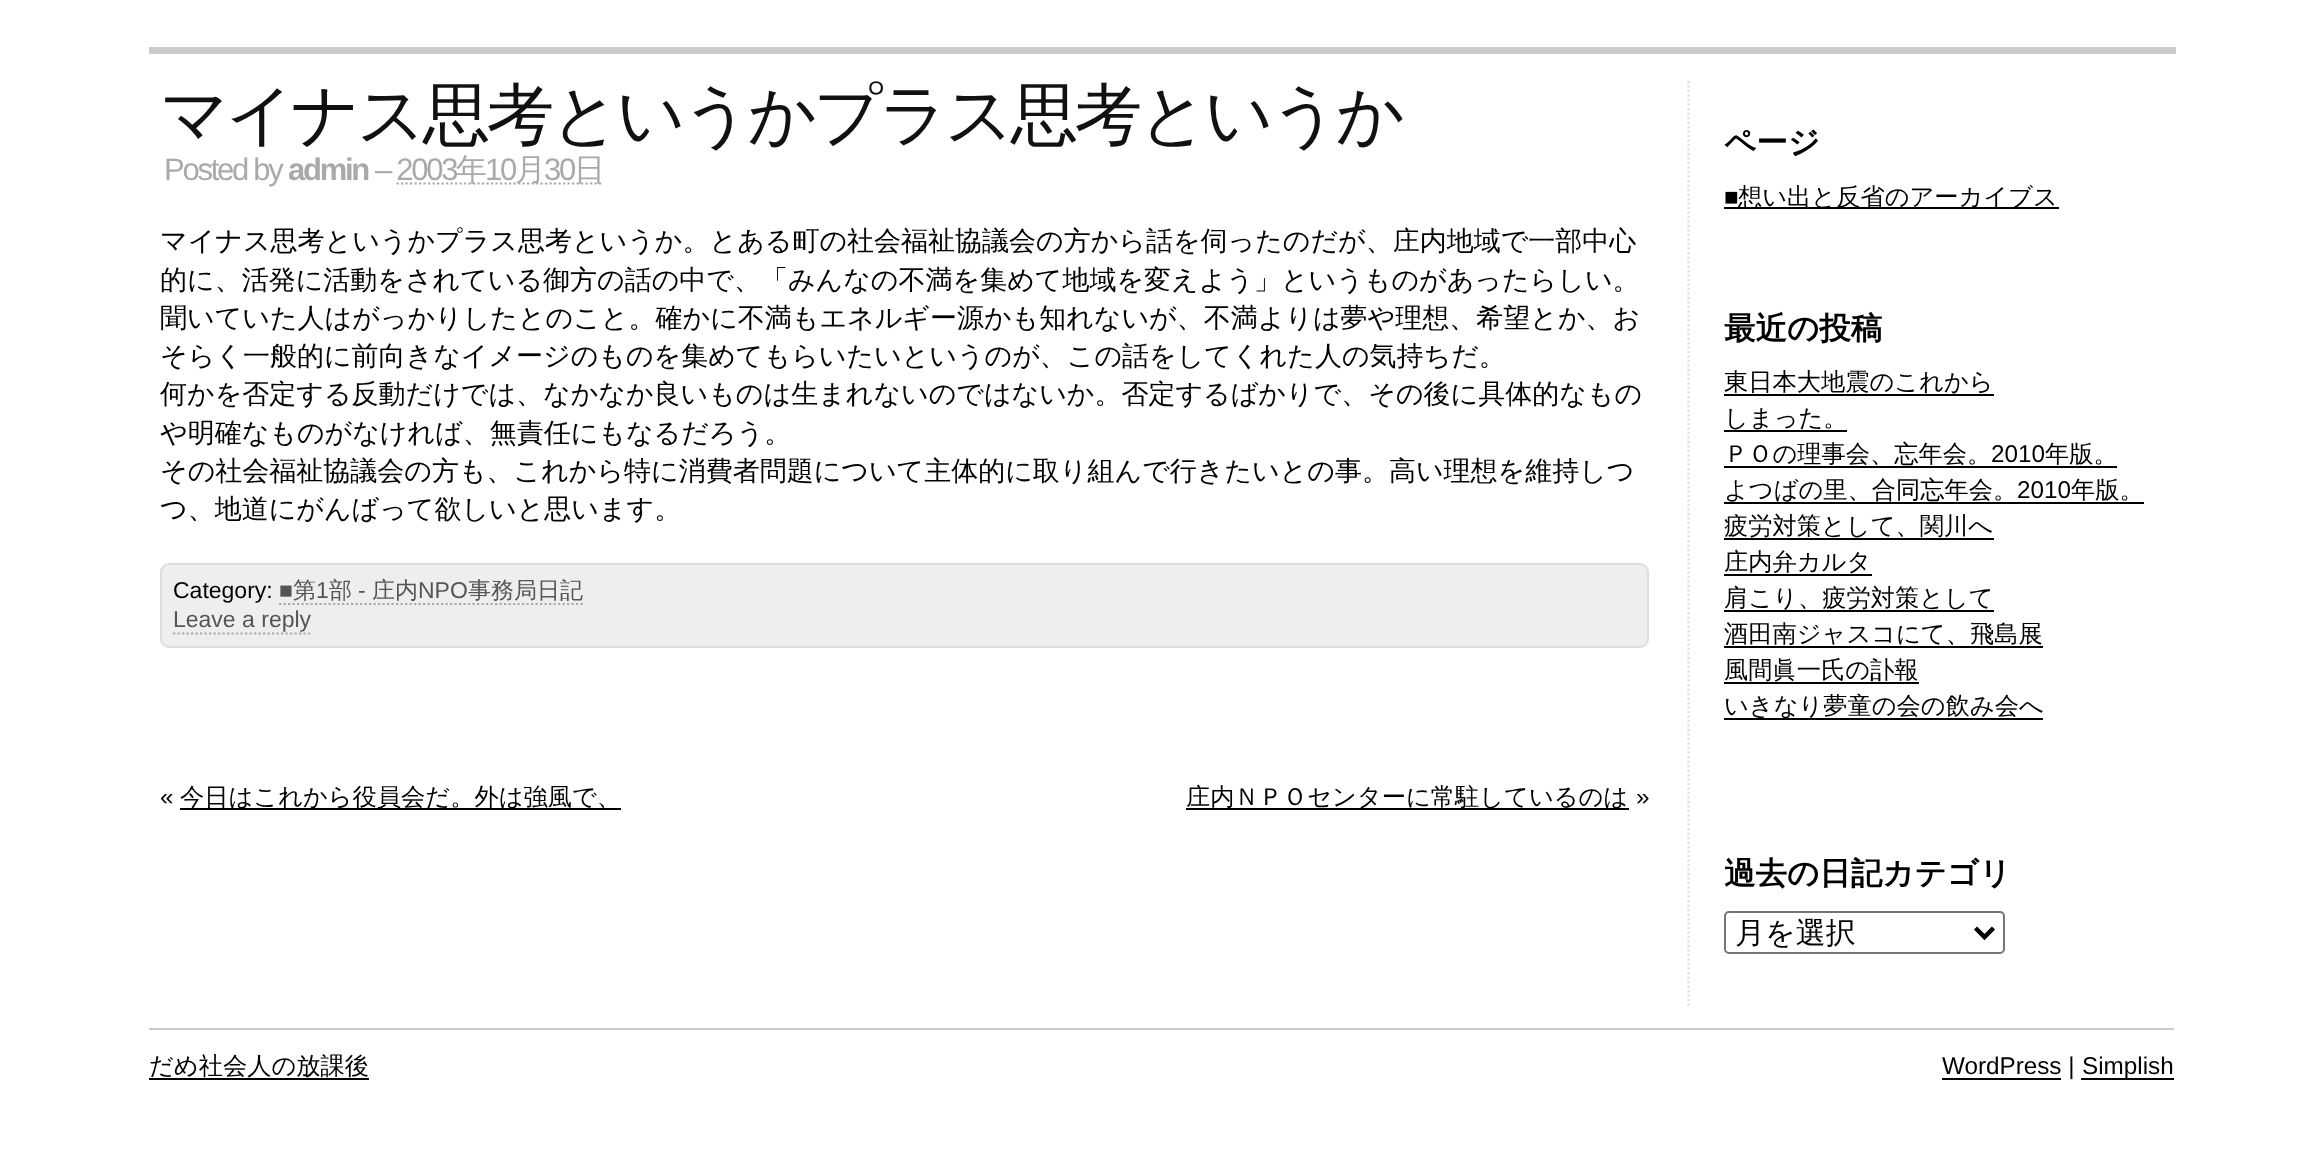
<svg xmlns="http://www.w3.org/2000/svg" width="2320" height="1155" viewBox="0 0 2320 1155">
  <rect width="100%" height="100%" fill="rgb(255,255,255)"/>
  <rect x="149" y="47" width="2027" height="7" fill="rgb(204,204,204)"/>
  <text x="160" y="138" font-family="WenQuanYi Zen Hei" font-size="67.5" font-weight="500" letter-spacing="-3.4" fill="rgb(17,17,17)">マイナス思考というかプラス思考というか</text>
  <text x="164" y="180" font-family="Liberation Sans" font-size="31" letter-spacing="-2.25" fill="rgb(169,169,169)">Posted by</text>
  <text x="288" y="180" font-family="Liberation Sans" font-size="31" font-weight="bold" letter-spacing="-2.25" fill="rgb(169,169,169)">admin</text>
  <text x="375" y="180" font-family="Liberation Sans" font-size="31" letter-spacing="-2.25" fill="rgb(169,169,169)">– 2003</text>
  <path d="M396.5 183.5H603" fill="none" stroke="rgb(169,169,169)" stroke-width="2.2" stroke-dasharray="2.25 2.25"/>
  <text x="456" y="180" font-family="WenQuanYi Zen Hei" font-size="31" font-weight="500" letter-spacing="-2.25" fill="rgb(169,169,169)">年</text>
  <text x="485" y="180" font-family="Liberation Sans" font-size="31" letter-spacing="-2.25" fill="rgb(169,169,169)">10</text>
  <text x="515" y="180" font-family="WenQuanYi Zen Hei" font-size="31" font-weight="500" letter-spacing="-2.25" fill="rgb(169,169,169)">月</text>
  <text x="544" y="180" font-family="Liberation Sans" font-size="31" letter-spacing="-2.25" fill="rgb(169,169,169)">30</text>
  <text x="574" y="180" font-family="WenQuanYi Zen Hei" font-size="31" font-weight="500" letter-spacing="-2.25" fill="rgb(169,169,169)">日</text>
  <g font-family="WenQuanYi Zen Hei" font-size="27" font-weight="500" fill="rgb(0,0,0)">
    <text>
      <tspan x="160" y="250">マイナス思考というかプラス思考というか。とある町の社会福祉協議会の方から話を伺ったのだが、庄内地域で一部中心</tspan>
      <tspan x="160" y="289">的に、活発に活動をされている御方の話の中で、「みんなの不満を集めて地域を変えよう」というものがあったらしい。</tspan>
      <tspan x="160" y="327">聞いていた人はがっかりしたとのこと。確かに不満もエネルギー源かも知れないが、不満よりは夢や理想、希望とか、お</tspan>
      <tspan x="160" y="365">そらく一般的に前向きなイメージのものを集めてもらいたいというのが、この話をしてくれた人の気持ちだ。</tspan>
      <tspan x="160" y="403">何かを否定する反動だけでは、なかなか良いものは生まれないのではないか。否定するばかりで、その後に具体的なもの</tspan>
      <tspan x="160" y="442">や明確なものがなければ、無責任にもなるだろう。</tspan>
      <tspan x="160" y="480">その社会福祉協議会の方も、これから特に消費者問題について主体的に取り組んで行きたいとの事。高い理想を維持しつ</tspan>
      <tspan x="160" y="518">つ、地道にがんばって欲しいと思います。</tspan>
    </text>
  </g>
  <rect x="161" y="564" width="1487" height="83" rx="8" fill="rgb(238,238,238)" stroke="rgb(221,221,221)" stroke-width="2"/>
  <text x="173" y="598" font-family="Liberation Sans" font-size="23" fill="rgb(0,0,0)">Category:</text>
  <text x="279" y="598" font-family="Liberation Sans" font-size="23" fill="rgb(85,85,85)">■</text>
  <text x="293" y="598" font-family="WenQuanYi Zen Hei" font-size="23" font-weight="500" fill="rgb(85,85,85)">第</text>
  <text x="316" y="598" font-family="Liberation Sans" font-size="23" fill="rgb(85,85,85)">1</text>
  <text x="329" y="598" font-family="WenQuanYi Zen Hei" font-size="23" font-weight="500" fill="rgb(85,85,85)">部</text>
  <text x="358" y="598" font-family="Liberation Sans" font-size="23" fill="rgb(85,85,85)">-</text>
  <path d="M279 604H583" fill="none" stroke="rgb(170,170,170)" stroke-width="2.2" stroke-dasharray="2.25 2.25"/>
  <text x="372" y="598" font-family="WenQuanYi Zen Hei" font-size="23" font-weight="500" fill="rgb(85,85,85)">庄内</text>
  <text x="418" y="598" font-family="Liberation Sans" font-size="23" fill="rgb(85,85,85)">NPO</text>
  <text x="468" y="598" font-family="WenQuanYi Zen Hei" font-size="23" font-weight="500" fill="rgb(85,85,85)">事務局日記</text>
  <text x="173" y="627" font-family="Liberation Sans" font-size="23" fill="rgb(85,85,85)">Leave a reply</text>
  <path d="M173 633.5H310.5" fill="none" stroke="rgb(170,170,170)" stroke-width="2.2" stroke-dasharray="2.25 2.25"/>
  <text x="160" y="805" font-family="Liberation Sans" font-size="24.25" fill="rgb(0,0,0)">«</text>
  <rect x="180" y="808" width="441" height="2" fill="rgb(0,0,0)"/>
  <text x="180" y="805" font-family="WenQuanYi Zen Hei" font-size="24.25" font-weight="500" fill="rgb(0,0,0)">今日はこれから役員会だ。外は強風で、</text>
  <rect x="1186" y="808" width="443" height="2" fill="rgb(0,0,0)"/>
  <text x="1186" y="805" font-family="WenQuanYi Zen Hei" font-size="24.25" font-weight="500" fill="rgb(0,0,0)">庄内ＮＰＯセンターに常駐しているのは</text>
  <text x="1636" y="805" font-family="Liberation Sans" font-size="24.25" fill="rgb(0,0,0)">»</text>
  <path d="M1688.5 81V1006" fill="none" stroke="rgb(221,221,221)" stroke-width="2.2" stroke-dasharray="2.25 2.25"/>
  <text x="1724" y="153" font-family="WenQuanYi Zen Hei" font-size="31.5" font-weight="bold" fill="rgb(0,0,0)">ページ</text>
  <text x="1724" y="205" font-family="Liberation Sans" font-size="24.25" fill="rgb(0,0,0)">■</text>
  <rect x="1724" y="207" width="335" height="2" fill="rgb(0,0,0)"/>
  <text x="1738" y="205" font-family="WenQuanYi Zen Hei" font-size="24.25" font-weight="500" fill="rgb(0,0,0)">想い出と反省のアーカイブス</text>
  <text x="1724" y="339" font-family="WenQuanYi Zen Hei" font-size="31.5" font-weight="bold" fill="rgb(0,0,0)">最近の投稿</text>
  <text x="1724" y="390" font-family="WenQuanYi Zen Hei" font-size="24.25" font-weight="500" fill="rgb(0,0,0)">東日本大地震のこれから</text>
  <rect x="1724" y="394" width="270" height="2" fill="rgb(0,0,0)"/>
  <text x="1724" y="426" font-family="WenQuanYi Zen Hei" font-size="24.25" font-weight="500" fill="rgb(0,0,0)">しまった。</text>
  <rect x="1724" y="430" width="123" height="2" fill="rgb(0,0,0)"/>
  <text x="1724" y="462" font-family="WenQuanYi Zen Hei" font-size="24.25" font-weight="500" fill="rgb(0,0,0)">ＰＯの理事会、忘年会。</text>
  <text x="1991" y="462" font-family="Liberation Sans" font-size="24.25" fill="rgb(0,0,0)">2010</text>
  <rect x="1724" y="466" width="393" height="2" fill="rgb(0,0,0)"/>
  <g font-family="WenQuanYi Zen Hei" font-size="24.25" font-weight="500" fill="rgb(0,0,0)">
    <text x="2045" y="462">年版。</text>
    <text x="1724" y="498">よつばの里、合同忘年会。</text>
  </g>
  <text x="2017" y="498" font-family="Liberation Sans" font-size="24.25" fill="rgb(0,0,0)">2010</text>
  <rect x="1724" y="502" width="420" height="2" fill="rgb(0,0,0)"/>
  <g font-family="WenQuanYi Zen Hei" font-size="24.25" font-weight="500" fill="rgb(0,0,0)">
    <text x="2071" y="498">年版。</text>
    <text x="1724" y="534">疲労対策として、関川へ</text>
  </g>
  <rect x="1724" y="538" width="270" height="2" fill="rgb(0,0,0)"/>
  <text x="1724" y="570" font-family="WenQuanYi Zen Hei" font-size="24.25" font-weight="500" fill="rgb(0,0,0)">庄内弁カルタ</text>
  <rect x="1724" y="574" width="148" height="2" fill="rgb(0,0,0)"/>
  <text x="1724" y="606" font-family="WenQuanYi Zen Hei" font-size="24.25" font-weight="500" fill="rgb(0,0,0)">肩こり、疲労対策として</text>
  <rect x="1724" y="610" width="270" height="2" fill="rgb(0,0,0)"/>
  <text x="1724" y="642" font-family="WenQuanYi Zen Hei" font-size="24.25" font-weight="500" fill="rgb(0,0,0)">酒田南ジャスコにて、飛島展</text>
  <rect x="1724" y="646" width="319" height="2" fill="rgb(0,0,0)"/>
  <text x="1724" y="678" font-family="WenQuanYi Zen Hei" font-size="24.25" font-weight="500" fill="rgb(0,0,0)">風間眞一氏の訃報</text>
  <rect x="1724" y="682" width="195" height="2" fill="rgb(0,0,0)"/>
  <rect x="1724" y="718" width="319" height="2" fill="rgb(0,0,0)"/>
  <text x="1724" y="714" font-family="WenQuanYi Zen Hei" font-size="24.25" font-weight="500" fill="rgb(0,0,0)">いきなり夢童の会の飲み会へ</text>
  <text x="1724" y="884" font-family="WenQuanYi Zen Hei" font-size="31.5" font-weight="bold" fill="rgb(0,0,0)">過去の日記カテゴリ</text>
  <rect x="1725" y="912" width="279" height="41" rx="4" fill="none" stroke="rgb(118,118,118)" stroke-width="2"/>
  <path d="M1975.5 928L1984.5 937L1993.5 928" fill="none" stroke="rgb(0,0,0)" stroke-width="4.5"/>
  <text x="1735" y="943" font-family="WenQuanYi Zen Hei" font-size="30" font-weight="500" fill="rgb(0,0,0)">月を選択</text>
  <rect x="149" y="1028" width="2025" height="2" fill="rgb(204,204,204)"/>
  <text x="149" y="1074" font-family="WenQuanYi Zen Hei" font-size="24.25" font-weight="500" fill="rgb(0,0,0)">だめ社会人の放課後</text>
  <rect x="149" y="1078" width="220" height="2" fill="rgb(0,0,0)"/>
  <rect x="1942" y="1078" width="119" height="2" fill="rgb(0,0,0)"/>
  <text x="1942" y="1074" font-family="Liberation Sans" font-size="24.25" fill="rgb(0,0,0)">WordPress |</text>
  <rect x="2081" y="1078" width="93" height="2" fill="rgb(0,0,0)"/>
  <text x="2082" y="1074" font-family="Liberation Sans" font-size="24.25" fill="rgb(0,0,0)">Simplish</text>
</svg>
